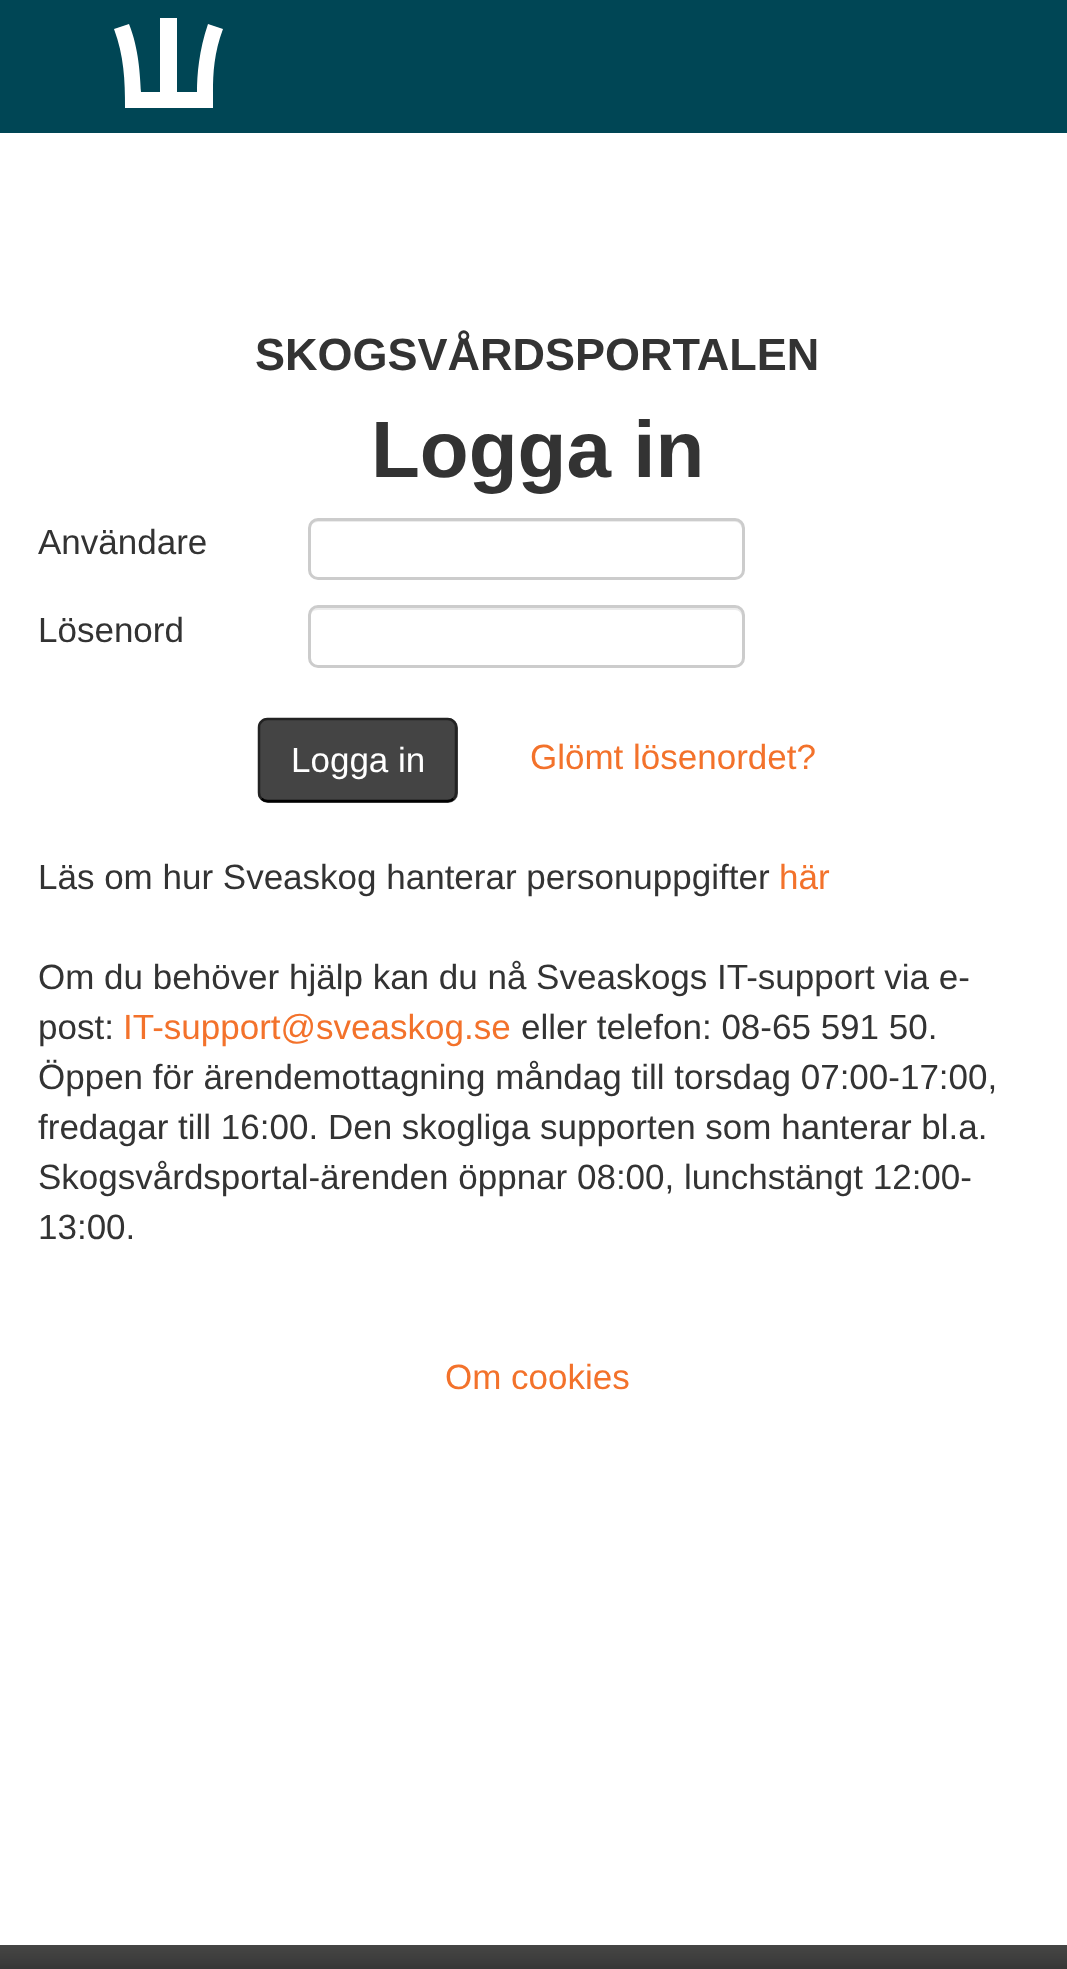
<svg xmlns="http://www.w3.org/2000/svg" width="1067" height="1969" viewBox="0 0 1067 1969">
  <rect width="100%" height="100%" fill="rgb(255,255,255)"/>
  <rect x="0" y="0" width="1067" height="133" fill="rgb(0,70,85)"/>
  <path d="M213 92C213 73 214 53 223 29L208 24C199 50 197 75 197 92H177V18H160V92H141C140 75 139 49 129 24L114 29C124 56 125 80 125 108H213Z" fill="rgb(255,255,255)"/>
  <text x="255" y="370" font-family="Liberation Sans" font-size="45" font-weight="bold" fill="rgb(51,51,51)">SKOGSVÅRDSPORTALEN</text>
  <text x="371" y="477" font-family="Liberation Sans" font-size="80" font-weight="bold" fill="rgb(51,51,51)">Logga in</text>
  <text x="38" y="554" font-family="Liberation Sans" font-size="35" fill="rgb(51,51,51)">Användare</text>
  <path d="M318 522H735C745 522 742 539 742 544V574C743 573 743 572 743 570V528C743 524 739 520 735 520H318C314 520 310 524 310 528V530C310 526 313 522 318 522Z" fill="rgb(236,236,236)"/>
  <rect x="309.5" y="519.5" width="434" height="59" rx="8.5" fill="none" stroke="rgb(204,204,204)" stroke-width="3"/>
  <text x="38" y="642" font-family="Liberation Sans" font-size="35" fill="rgb(51,51,51)">Lösenord</text>
  <path d="M318 610H735C739 610 742 613 742 618V661C743 660 743 658 743 657V616C743 612 739 608 735 608H318C314 608 310 612 310 616V618C310 613 313 610 318 610Z" fill="rgb(236,236,236)"/>
  <rect x="309.5" y="606.5" width="434" height="60" rx="8.5" fill="none" stroke="rgb(204,204,204)" stroke-width="3"/>
  <rect x="258" y="718" width="200" height="85" rx="10" fill="rgb(68,68,68)"/>
  <path d="M453.5 798.5C452 800.5 450 801 447.5 801H267.5C265 801 263 800.5 261.5 798.5" fill="none" stroke="rgb(0,0,0)" stroke-width="2.5"/>
  <path d="M261.5 798.5C259.5 797 259 795 259 792.5V727.5C259 725 259.5 723 261.5 721.5C263 719.5 265 719 267.5 719H447.5C450 719 452 719.5 453.5 721.5C455.5 723 456 725 456 727.5V792.5C456 795 455.5 797 453.5 798.5" fill="none" stroke="rgb(34,34,34)" stroke-width="2.5"/>
  <text x="291" y="772" font-family="Liberation Sans" font-size="35" fill="rgb(255,255,255)">Logga in</text>
  <text x="530" y="769" font-family="Liberation Sans" font-size="35" fill="rgb(243,114,43)">Glömt lösenordet?</text>
  <text x="38" y="889" font-family="Liberation Sans" font-size="35" fill="rgb(51,51,51)">Läs om hur Sveaskog hanterar personuppgifter</text>
  <text x="779" y="889" font-family="Liberation Sans" font-size="35" fill="rgb(243,114,43)">här</text>
  <g font-family="Liberation Sans" font-size="35" fill="rgb(51,51,51)">
    <text>
      <tspan x="38" y="989">Om du behöver hjälp kan du nå Sveaskogs IT-support via e-</tspan>
      <tspan x="38" y="1039">post:</tspan>
    </text>
  </g>
  <text x="123" y="1039" font-family="Liberation Sans" font-size="35" fill="rgb(243,114,43)">IT-support@sveaskog.se</text>
  <g font-family="Liberation Sans" font-size="35" fill="rgb(51,51,51)">
    <text x="521" y="1039">eller telefon: 08-65 591 50.</text>
    <text>
      <tspan x="38" y="1089">Öppen för ärendemottagning måndag till torsdag 07:00-17:00,</tspan>
      <tspan x="38" y="1139">fredagar till 16:00. Den skogliga supporten som hanterar bl.a.</tspan>
      <tspan x="38" y="1189">Skogsvårdsportal-ärenden öppnar 08:00, lunchstängt 12:00-</tspan>
      <tspan x="38" y="1239">13:00.</tspan>
    </text>
  </g>
  <text x="445" y="1389" font-family="Liberation Sans" font-size="35" fill="rgb(243,114,43)">Om cookies</text>
  <image x="0" y="1945" width="1067" height="24" href="pic1.png"/>
</svg>
